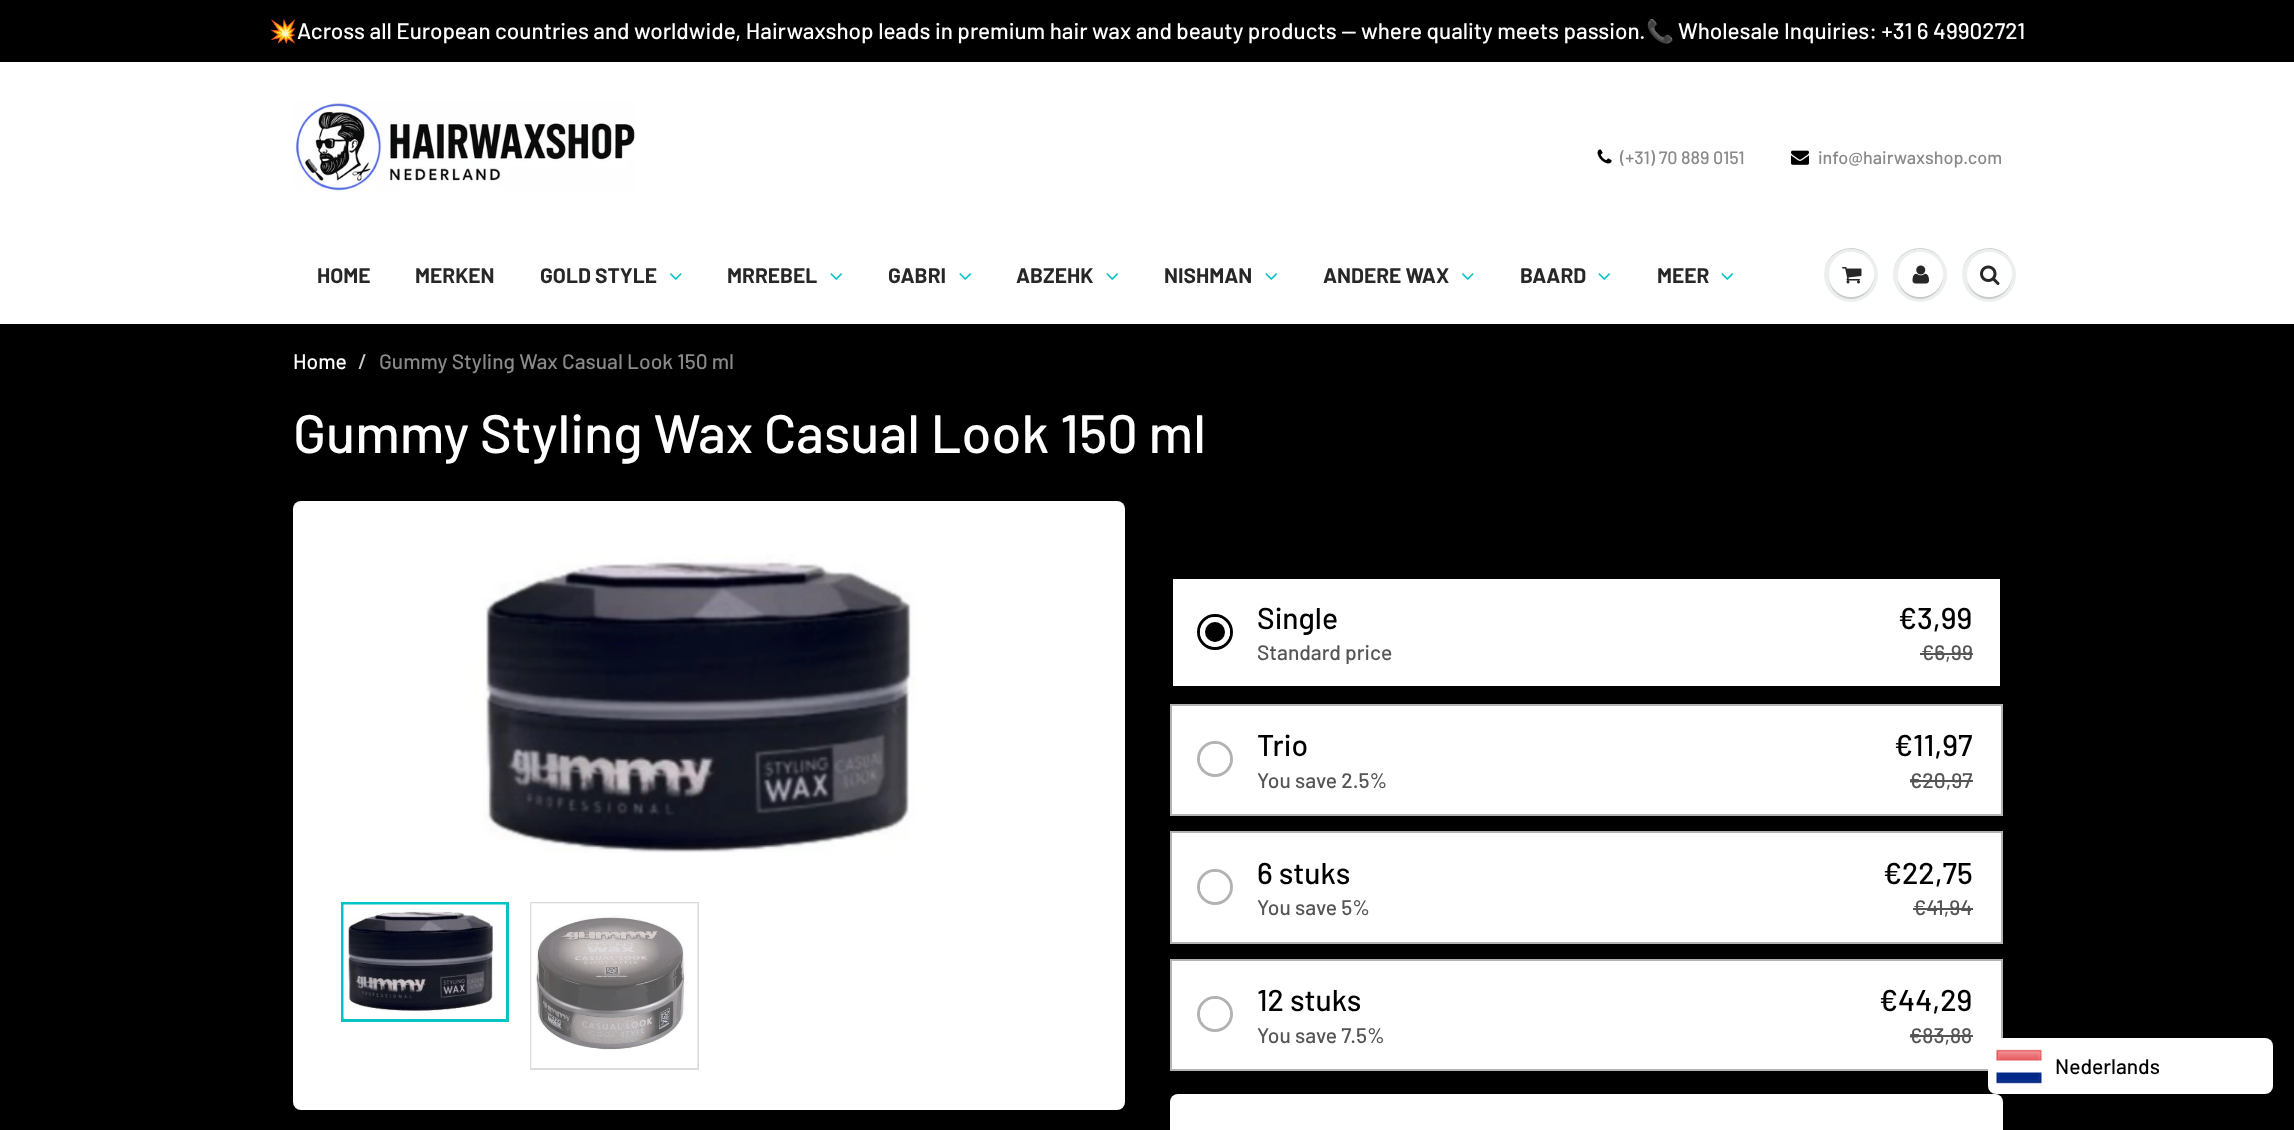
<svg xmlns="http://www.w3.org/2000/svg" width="2294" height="1130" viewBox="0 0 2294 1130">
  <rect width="100%" height="100%" fill="rgb(255,255,255)"/>
  <rect x="0" y="0" width="2294" height="62" fill="rgb(0,0,0)"/>
  <text x="269" y="39" font-family="Noto Color Emoji" font-size="22.5" fill="rgb(255,255,255)">💥</text>
  <text x="297" y="39" font-family="Barlow" font-size="22.5" font-weight="500" fill="rgb(255,255,255)">Across all European countries and worldwide, Hairwaxshop leads in premium hair wax and beauty products — where quality meets passion.</text>
  <text x="1646" y="39" font-family="Noto Color Emoji" font-size="22.5" fill="rgb(255,255,255)">📞</text>
  <text x="1678" y="39" font-family="Barlow" font-size="22.5" font-weight="500" fill="rgb(255,255,255)">Wholesale Inquiries: +31 6 49902721</text>
  <image x="294" y="101" width="342" height="90" href="pic1.png"/>
  <image x="1597" y="149" width="15" height="15" href="pic2.png"/>
  <text x="1620" y="164" font-family="Barlow" font-size="18" font-weight="500" fill="rgb(137,137,137)">(+31) 70 889 0151</text>
  <image x="1791" y="150" width="18" height="15" href="pic3.png"/>
  <text x="1818" y="164" font-family="Barlow" font-size="18" font-weight="500" fill="rgb(137,137,137)">info@hairwaxshop.com</text>
  <g font-family="Barlow" font-size="21" font-weight="bold" fill="rgb(40,39,39)">
    <text x="317" y="283">HOME</text>
    <text x="415" y="283">MERKEN</text>
    <text x="540" y="283">GOLD STYLE</text>
  </g>
  <image x="670" y="273" width="12" height="7" href="pic4.png"/>
  <text x="727" y="283" font-family="Barlow" font-size="21" font-weight="bold" fill="rgb(40,39,39)">MRREBEL</text>
  <image x="830" y="273" width="12" height="7" href="pic5.png"/>
  <text x="888" y="283" font-family="Barlow" font-size="21" font-weight="bold" fill="rgb(40,39,39)">GABRI</text>
  <image x="959" y="273" width="12" height="7" href="pic5.png"/>
  <text x="1016" y="283" font-family="Barlow" font-size="21" font-weight="bold" fill="rgb(40,39,39)">ABZEHK</text>
  <image x="1106" y="273" width="12" height="7" href="pic5.png"/>
  <text x="1164" y="283" font-family="Barlow" font-size="21" font-weight="bold" fill="rgb(40,39,39)">NISHMAN</text>
  <image x="1265" y="273" width="12" height="7" href="pic5.png"/>
  <text x="1323" y="283" font-family="Barlow" font-size="21" font-weight="bold" fill="rgb(40,39,39)">ANDERE WAX</text>
  <image x="1462" y="273" width="12" height="7" href="pic4.png"/>
  <text x="1520" y="283" font-family="Barlow" font-size="21" font-weight="bold" fill="rgb(40,39,39)">BAARD</text>
  <image x="1598" y="273" width="12" height="7" href="pic5.png"/>
  <text x="1657" y="283" font-family="Barlow" font-size="21" font-weight="bold" fill="rgb(40,39,39)">MEER</text>
  <image x="1721" y="273" width="12" height="7" href="pic5.png"/>
  <circle cx="1851" cy="275" r="27" fill="rgb(237,239,239)"/>
  <path d="M1851 249C1866 249 1878 261 1878 275C1878 270 1876 264 1873 260C1858 238 1824 249 1824 275C1824 261 1836 249 1851 249Z" fill="rgb(201,203,203)"/>
  <path d="M1829 281C1830 286 1833 291 1837 294C1854 308 1879 291 1873 270C1879 298 1838 308 1829 281Z" fill="rgb(201,203,203)"/>
  <circle cx="1851.5" cy="274.5" r="22.5" fill="rgb(255,255,255)"/>
  <path d="M1851 254C1869 254 1876 269 1873 282C1882 254 1841 239 1830 267C1833 260 1840 254 1851 254Z" fill="rgb(255,255,255)"/>
  <image x="1842" y="267" width="20" height="17" href="pic6.png"/>
  <circle cx="1920" cy="275" r="27" fill="rgb(237,239,239)"/>
  <path d="M1920 249C1935 249 1947 261 1947 275C1947 270 1945 264 1942 260C1927 238 1893 249 1893 275C1893 261 1905 249 1920 249Z" fill="rgb(201,203,203)"/>
  <path d="M1898 281C1899 286 1902 291 1906 294C1923 308 1948 291 1942 270C1948 298 1907 308 1898 281Z" fill="rgb(201,203,203)"/>
  <circle cx="1920.5" cy="274.5" r="22.5" fill="rgb(255,255,255)"/>
  <path d="M1920 254C1938 254 1945 269 1942 282C1951 254 1910 239 1899 267C1902 260 1909 254 1920 254Z" fill="rgb(255,255,255)"/>
  <image x="1912" y="265" width="17" height="19" href="pic7.png"/>
  <circle cx="1989" cy="275" r="27" fill="rgb(237,239,239)"/>
  <path d="M1989 249C2004 249 2016 261 2016 275C2016 270 2014 264 2011 260C1996 238 1962 249 1962 275C1962 261 1974 249 1989 249Z" fill="rgb(201,203,203)"/>
  <path d="M1967 281C1968 286 1971 291 1975 294C1992 308 2017 291 2011 270C2017 298 1976 308 1967 281Z" fill="rgb(201,203,203)"/>
  <circle cx="1989.5" cy="274.5" r="22.5" fill="rgb(255,255,255)"/>
  <path d="M1989 254C2007 254 2014 269 2011 282C2020 254 1979 239 1968 267C1971 260 1978 254 1989 254Z" fill="rgb(255,255,255)"/>
  <image x="1980" y="265" width="20" height="20" href="pic8.png"/>
  <rect x="0" y="324" width="2294" height="806" fill="rgb(0,0,0)"/>
  <text x="293" y="369" font-family="Barlow" font-size="21" font-weight="500" fill="rgb(255,255,255)">Home</text>
  <text x="358" y="369" font-family="Barlow" font-size="21" font-weight="500" fill="rgb(204,204,204)">/</text>
  <text x="379" y="369" font-family="Barlow" font-size="21" font-weight="500" fill="rgb(137,137,137)">Gummy Styling Wax Casual Look 150 ml</text>
  <text x="293" y="453" font-family="Barlow" font-size="54" font-weight="500" fill="rgb(255,255,255)">Gummy Styling Wax Casual Look 150 ml</text>
  <rect x="293" y="501" width="832" height="609" rx="8" fill="rgb(255,255,255)"/>
  <image x="473" y="554" width="443" height="299" href="pic9.png"/>
  <rect x="342.5" y="903.5" width="165" height="117" fill="none" stroke="rgb(3,195,196)" stroke-width="3"/>
  <image x="343" y="904" width="163" height="115" href="pic10.png"/>
  <rect x="531" y="903" width="167" height="166" fill="none" stroke="rgb(219,219,219)" stroke-width="2"/>
  <image x="531" y="903" width="167" height="165" href="pic11.png"/>
  <rect x="1173" y="579" width="827" height="107" fill="rgb(255,255,255)"/>
  <circle cx="1215" cy="632" r="16.5" fill="none" stroke="rgb(0,0,0)" stroke-width="3"/>
  <circle cx="1215" cy="632" r="12.5" fill="rgb(0,0,0)" stroke="rgb(255,255,255)" stroke-width="5"/>
  <text x="1257" y="629" font-family="Barlow" font-size="30" font-weight="500" fill="rgb(0,0,0)">Single</text>
  <text x="1257" y="660" font-family="Barlow" font-size="21" font-weight="500" fill="rgb(85,85,85)">Standard price</text>
  <text x="1898" y="629" font-family="Barlow" font-size="30" font-weight="500" fill="rgb(0,0,0)">€3,99</text>
  <text x="1921" y="660" font-family="Barlow" font-size="21" font-weight="500" fill="rgb(85,85,85)">€6,99</text>
  <rect x="1920" y="653" width="53" height="2" fill="rgb(85,85,85)"/>
  <rect x="1171" y="705" width="831" height="110" fill="rgb(255,255,255)" stroke="rgb(179,179,179)" stroke-width="2"/>
  <circle cx="1215" cy="759" r="16.5" fill="none" stroke="rgb(179,179,179)" stroke-width="3"/>
  <circle cx="1215" cy="759" r="12.5" fill="rgb(255,255,255)" stroke="rgb(255,255,255)" stroke-width="5"/>
  <text x="1257" y="756" font-family="Barlow" font-size="30" font-weight="500" fill="rgb(0,0,0)">Trio</text>
  <text x="1257" y="788" font-family="Barlow" font-size="21" font-weight="500" fill="rgb(85,85,85)">You save 2.5%</text>
  <text x="1894" y="756" font-family="Barlow" font-size="30" font-weight="500" fill="rgb(0,0,0)">€11,97</text>
  <text x="1909" y="788" font-family="Barlow" font-size="21" font-weight="500" fill="rgb(85,85,85)">€20,97</text>
  <rect x="1910" y="780" width="63" height="2" fill="rgb(85,85,85)"/>
  <rect x="1171" y="832" width="831" height="111" fill="rgb(255,255,255)" stroke="rgb(179,179,179)" stroke-width="2"/>
  <circle cx="1215" cy="887" r="16.5" fill="none" stroke="rgb(179,179,179)" stroke-width="3"/>
  <circle cx="1215" cy="887" r="12.5" fill="rgb(255,255,255)" stroke="rgb(255,255,255)" stroke-width="5"/>
  <text x="1257" y="884" font-family="Barlow" font-size="30" font-weight="500" fill="rgb(0,0,0)">6 stuks</text>
  <text x="1257" y="915" font-family="Barlow" font-size="21" font-weight="500" fill="rgb(85,85,85)">You save 5%</text>
  <text x="1883" y="884" font-family="Barlow" font-size="30" font-weight="500" fill="rgb(0,0,0)">€22,75</text>
  <text x="1913" y="915" font-family="Barlow" font-size="21" font-weight="500" fill="rgb(85,85,85)">€41,94</text>
  <rect x="1913" y="908" width="60" height="2" fill="rgb(85,85,85)"/>
  <rect x="1171" y="960" width="831" height="110" fill="rgb(255,255,255)" stroke="rgb(179,179,179)" stroke-width="2"/>
  <circle cx="1215" cy="1014" r="16.5" fill="none" stroke="rgb(179,179,179)" stroke-width="3"/>
  <circle cx="1215" cy="1014" r="12.5" fill="rgb(255,255,255)" stroke="rgb(255,255,255)" stroke-width="5"/>
  <text x="1257" y="1011" font-family="Barlow" font-size="30" font-weight="500" fill="rgb(0,0,0)">12 stuks</text>
  <text x="1257" y="1043" font-family="Barlow" font-size="21" font-weight="500" fill="rgb(85,85,85)">You save 7.5%</text>
  <text x="1879" y="1011" font-family="Barlow" font-size="30" font-weight="500" fill="rgb(0,0,0)">€44,29</text>
  <text x="1909" y="1043" font-family="Barlow" font-size="21" font-weight="500" fill="rgb(85,85,85)">€83,88</text>
  <rect x="1910" y="1035" width="63" height="2" fill="rgb(85,85,85)"/>
  <rect x="1170" y="1094" width="833" height="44" rx="8" fill="rgb(255,255,255)"/>
  <rect x="1988" y="1038" width="285" height="56" rx="8" fill="rgb(255,255,255)"/>
  <image x="1996" y="1049" width="46" height="35" href="pic12.png"/>
  <text x="2055" y="1074" font-family="Barlow" font-size="21" font-weight="500" fill="rgb(0,0,0)">Nederlands</text>
</svg>
